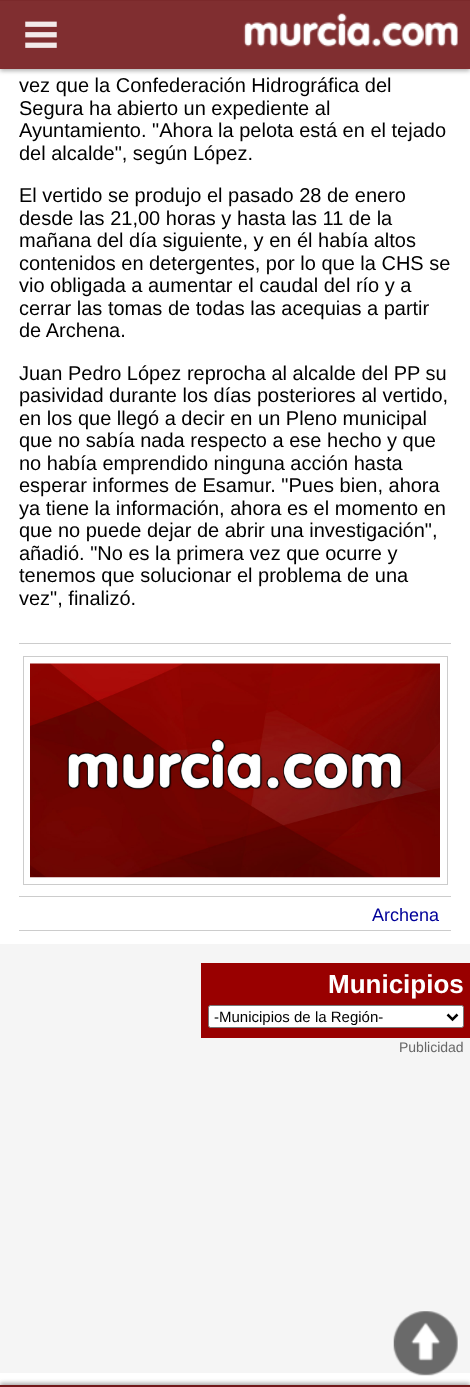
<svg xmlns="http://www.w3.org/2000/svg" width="470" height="1387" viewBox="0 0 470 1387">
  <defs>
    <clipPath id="clip1"><path d="M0 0H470V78H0ZM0 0H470V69H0Z" clip-rule="evenodd"/></clipPath>
  </defs>
  <rect width="100%" height="100%" fill="rgb(255,255,255)"/>
  <rect x="0" y="0" width="470" height="1" fill="rgb(204,204,204)"/>
  <g clip-path="url(#clip1)">
    <rect x="0" y="3" width="470" height="68" fill="rgba(170,170,170,0.9)" filter="blur(2px)"/>
  </g>
  <rect x="0" y="0" width="470" height="69" fill="rgba(114,23,26,0.9)"/>
  <image x="243" y="13" width="215" height="34" href="pic1.png"/>
  <image x="25" y="21" width="32" height="27" href="pic2.png"/>
  <rect x="19" y="643" width="432" height="1" fill="rgb(204,204,204)"/>
  <g font-family="Liberation Sans" font-size="20" fill="rgb(0,0,0)">
    <text>
      <tspan x="19" y="92">vez que la Confederación Hidrográfica del</tspan>
      <tspan x="19" y="115">Segura ha abierto un expediente al</tspan>
      <tspan x="19" y="137">Ayuntamiento. "Ahora la pelota está en el tejado</tspan>
      <tspan x="19" y="160">del alcalde", según López.</tspan>
    </text>
    <text>
      <tspan x="19" y="202">El vertido se produjo el pasado 28 de enero</tspan>
      <tspan x="19" y="225">desde las 21,00 horas y hasta las 11 de la</tspan>
      <tspan x="19" y="247">mañana del día siguiente, y en él había altos</tspan>
      <tspan x="19" y="270">contenidos en detergentes, por lo que la CHS se</tspan>
      <tspan x="19" y="292">vio obligada a aumentar el caudal del río y a</tspan>
      <tspan x="19" y="315">cerrar las tomas de todas las acequias a partir</tspan>
      <tspan x="19" y="337">de Archena.</tspan>
    </text>
    <text>
      <tspan x="19" y="380">Juan Pedro López reprocha al alcalde del PP su</tspan>
      <tspan x="19" y="402">pasividad durante los días posteriores al vertido,</tspan>
      <tspan x="19" y="425">en los que llegó a decir en un Pleno municipal</tspan>
      <tspan x="19" y="447">que no sabía nada respecto a ese hecho y que</tspan>
      <tspan x="19" y="470">no había emprendido ninguna acción hasta</tspan>
      <tspan x="19" y="492">esperar informes de Esamur. "Pues bien, ahora</tspan>
      <tspan x="19" y="515">ya tiene la información, ahora es el momento en</tspan>
      <tspan x="19" y="537">que no puede dejar de abrir una investigación",</tspan>
      <tspan x="19" y="560">añadió. "No es la primera vez que ocurre y</tspan>
      <tspan x="19" y="582">tenemos que solucionar el problema de una</tspan>
      <tspan x="19" y="605">vez", finalizó.</tspan>
    </text>
  </g>
  <rect x="23.5" y="656.5" width="424" height="228" fill="none" stroke="rgb(204,204,204)"/>
  <image x="30" y="663" width="410" height="215" href="pic3.png"/>
  <rect x="19" y="896" width="432" height="1" fill="rgb(204,204,204)"/>
  <rect x="19" y="930" width="432" height="1" fill="rgb(204,204,204)"/>
  <text x="372" y="921" font-family="Liberation Sans" font-size="18" fill="rgb(0,0,153)">Archena</text>
  <rect x="0" y="944" width="470" height="429" fill="rgb(245,245,245)"/>
  <rect x="201" y="963" width="269" height="75" fill="rgb(153,0,0)"/>
  <text x="328" y="993" font-family="Liberation Sans" font-size="26" font-weight="bold" fill="rgb(255,255,255)">Municipios</text>
  <rect x="208.5" y="1005.5" width="255" height="22" rx="2" fill="rgb(255,255,255)" stroke="rgb(118,118,118)"/>
  <path d="M447.5 1014.5L452.5 1019.5L457.5 1014.5" fill="none" stroke="rgb(0,0,0)" stroke-width="2.5"/>
  <text x="214" y="1022" font-family="Liberation Sans" font-size="15" fill="rgb(0,0,0)">-Municipios de la Región-</text>
  <text x="399" y="1052" font-family="Liberation Sans" font-size="14" fill="rgb(102,102,102)">Publicidad</text>
  <image x="393" y="1311" width="65" height="65" href="pic4.png"/>
  <rect x="0" y="1383" width="470" height="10" fill="rgb(170,170,170)" filter="blur(2px)"/>
  <rect x="0" y="1385" width="470" height="2" fill="rgb(114,23,26)"/>
</svg>
